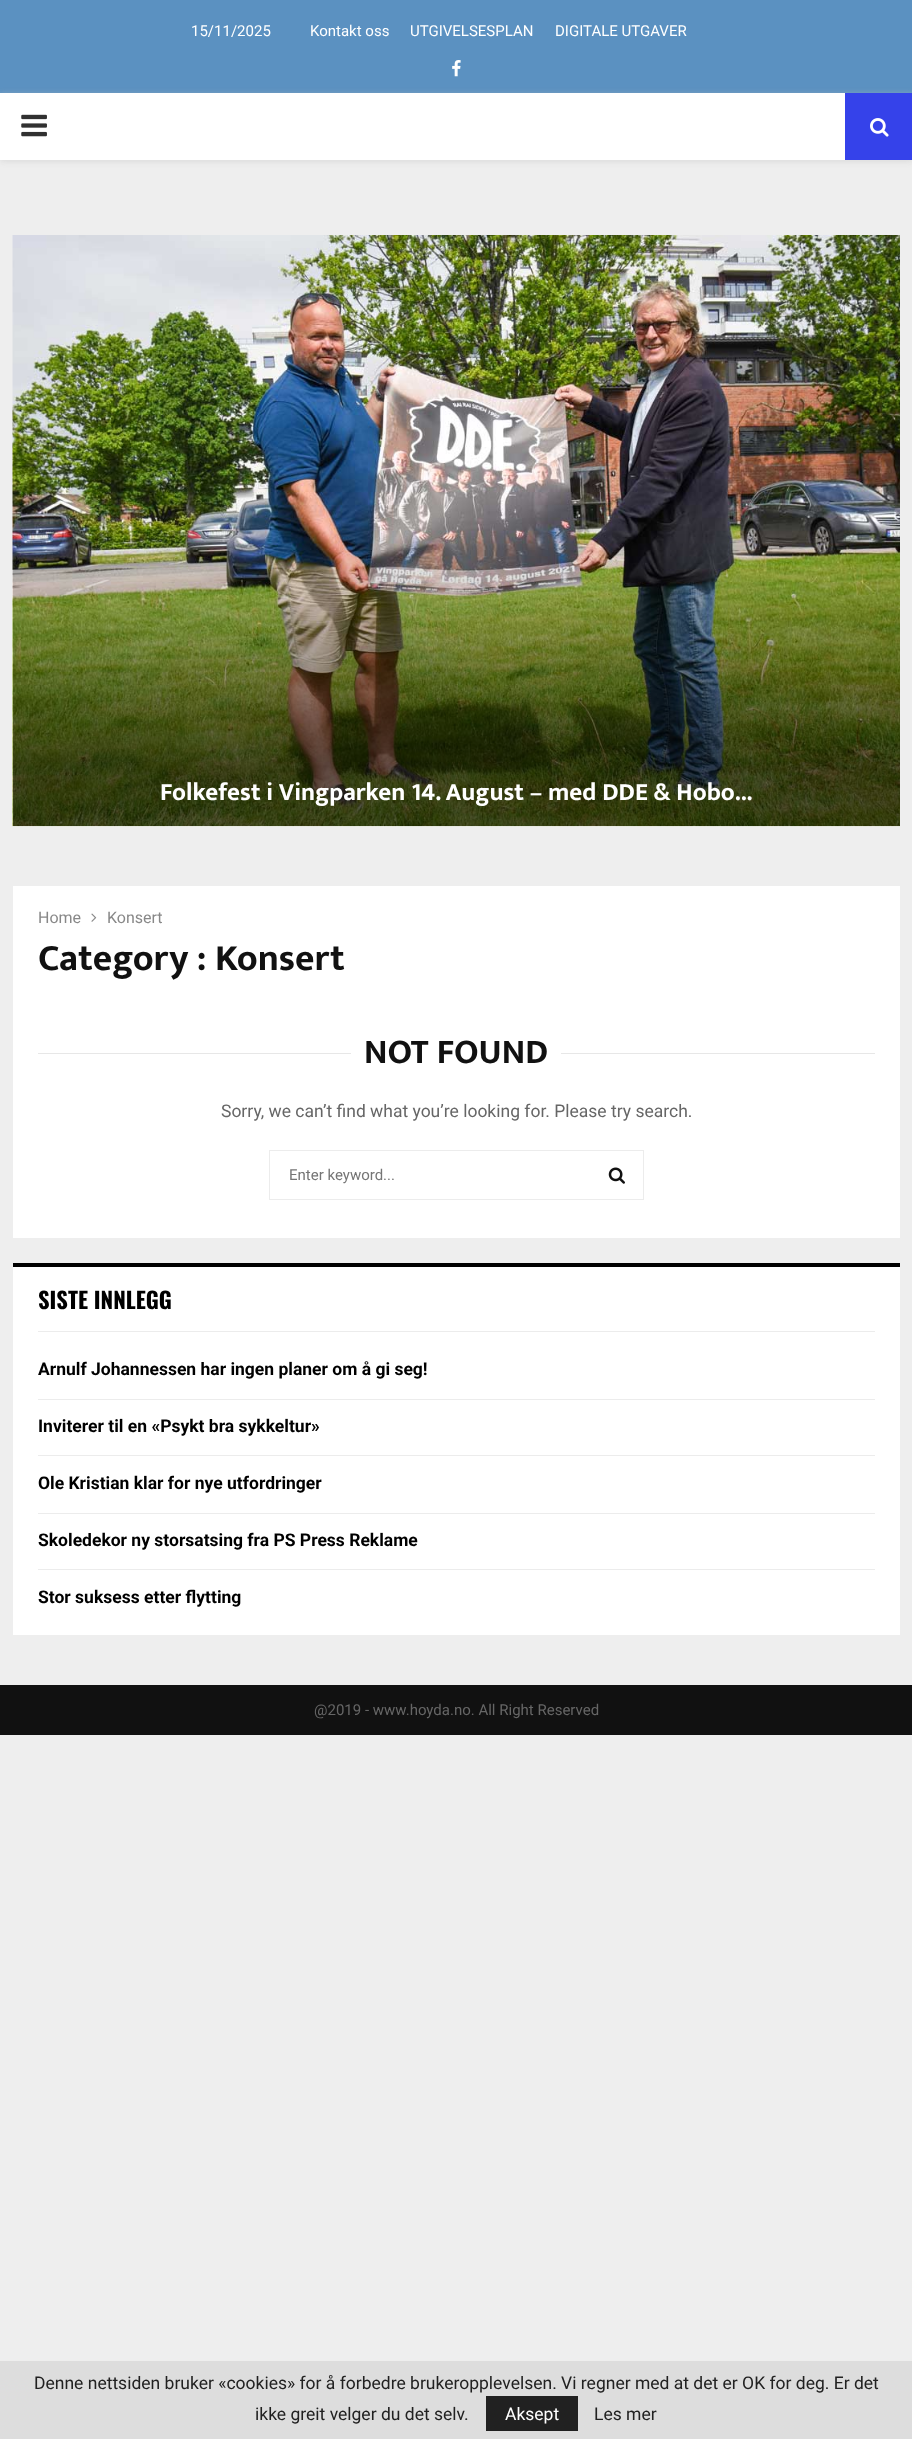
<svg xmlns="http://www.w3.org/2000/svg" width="912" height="2439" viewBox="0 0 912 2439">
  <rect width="100%" height="100%" fill="rgb(238,238,238)"/>
  <rect x="0" y="0" width="912" height="93" fill="rgb(91,145,193)"/>
  <g font-family="Roboto" font-size="15" fill="rgb(255,255,255)">
    <text x="191" y="36">15/11/2025</text>
    <text x="310" y="36">Kontakt oss</text>
    <text x="410" y="36">UTGIVELSESPLAN</text>
    <text x="555" y="36">DIGITALE UTGAVER</text>
  </g>
  <image x="452" y="60" width="9" height="17" href="pic1.png"/>
  <rect x="0" y="94" width="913" height="67" fill="rgba(190,190,190,0.46)" filter="blur(3px)"/>
  <rect x="0" y="93" width="845" height="67" fill="rgb(255,255,255)"/>
  <image x="21" y="114" width="26" height="23" href="pic2.png"/>
  <rect x="845" y="93" width="67" height="67" fill="rgb(53,66,234)"/>
  <image x="870" y="118" width="19" height="19" href="pic3.png"/>
  <image x="12" y="235" width="888" height="592" href="pic4.png"/>
  <text x="160" y="800" font-family="Mukta Vaani" font-size="25" font-weight="bold" fill="rgb(255,255,255)">Folkefest i Vingparken 14. August – med DDE &amp; Hobo...</text>
  <rect x="13" y="886" width="887" height="352" fill="rgb(255,255,255)"/>
  <text x="38" y="923" font-family="Roboto" font-size="16" fill="rgb(136,136,136)">Home</text>
  <image x="91" y="913" width="6" height="9" href="pic5.png"/>
  <text x="107" y="923" font-family="Roboto" font-size="16" fill="rgb(136,136,136)">Konsert</text>
  <text x="38" y="970" font-family="Mukta Vaani" font-size="37.5" font-weight="bold" fill="rgb(17,17,17)">Category : Konsert</text>
  <rect x="38" y="1053" width="313" height="1" fill="rgb(231,231,231)"/>
  <text x="364" y="1063" font-family="Mukta Vaani" font-size="35" font-weight="bold" fill="rgb(17,17,17)">NOT FOUND</text>
  <rect x="561" y="1053" width="314" height="1" fill="rgb(231,231,231)"/>
  <text x="221" y="1117" font-family="Roboto" font-size="17.5" fill="rgb(102,102,102)">Sorry, we can’t find what you’re looking for. Please try search.</text>
  <rect x="269.5" y="1150.5" width="374" height="49" fill="none" stroke="rgb(236,236,236)"/>
  <text x="289" y="1180" font-family="Roboto" font-size="15" fill="rgb(117,117,117)">Enter keyword...</text>
  <image x="608" y="1167" width="17" height="17" href="pic6.png"/>
  <rect x="13" y="1267" width="887" height="368" fill="rgb(255,255,255)"/>
  <rect x="38" y="1331" width="837" height="1" fill="rgb(236,236,236)"/>
  <rect x="13" y="1263" width="887" height="4" fill="rgb(0,0,0)"/>
  <text x="38" y="1309" font-family="Oswald" font-size="22.5" font-weight="bold" fill="rgb(0,0,0)">SISTE INNLEGG</text>
  <rect x="38" y="1399" width="837" height="1" fill="rgb(236,236,236)"/>
  <text x="38" y="1375" font-family="Roboto" font-size="17.5" font-weight="bold" fill="rgb(0,0,0)">Arnulf Johannessen har ingen planer om å gi seg!</text>
  <rect x="38" y="1455" width="837" height="1" fill="rgb(236,236,236)"/>
  <text x="38" y="1432" font-family="Roboto" font-size="17.5" font-weight="bold" fill="rgb(0,0,0)">Inviterer til en «Psykt bra sykkeltur»</text>
  <rect x="38" y="1513" width="837" height="1" fill="rgb(236,236,236)"/>
  <text x="38" y="1489" font-family="Roboto" font-size="17.5" font-weight="bold" fill="rgb(0,0,0)">Ole Kristian klar for nye utfordringer</text>
  <rect x="38" y="1569" width="837" height="1" fill="rgb(236,236,236)"/>
  <g font-family="Roboto" font-size="17.5" font-weight="bold" fill="rgb(0,0,0)">
    <text x="38" y="1546">Skoledekor ny storsatsing fra PS Press Reklame</text>
    <text x="38" y="1603">Stor suksess etter flytting</text>
  </g>
  <rect x="0" y="1685" width="912" height="50" fill="rgb(17,17,17)"/>
  <text x="314" y="1715" font-family="Roboto" font-size="15" fill="rgb(102,102,102)">@2019 - www.hoyda.no. All Right Reserved</text>
  <rect x="0" y="2361" width="912" height="78" fill="rgb(221,221,221)"/>
  <g font-family="Roboto" font-size="17.5" fill="rgb(33,33,33)">
    <text x="34" y="2389">Denne nettsiden bruker «cookies» for å forbedre brukeropplevelsen. Vi regner med at det er OK for deg. Er det</text>
    <text x="255" y="2420">ikke greit velger du det selv.</text>
  </g>
  <rect x="486" y="2396" width="92" height="35" fill="rgb(33,33,33)"/>
  <text x="505" y="2420" font-family="Roboto" font-size="17.5" fill="rgb(255,255,255)">Aksept</text>
  <text x="594" y="2420" font-family="Roboto" font-size="17.5" fill="rgb(33,33,33)">Les mer</text>
</svg>
